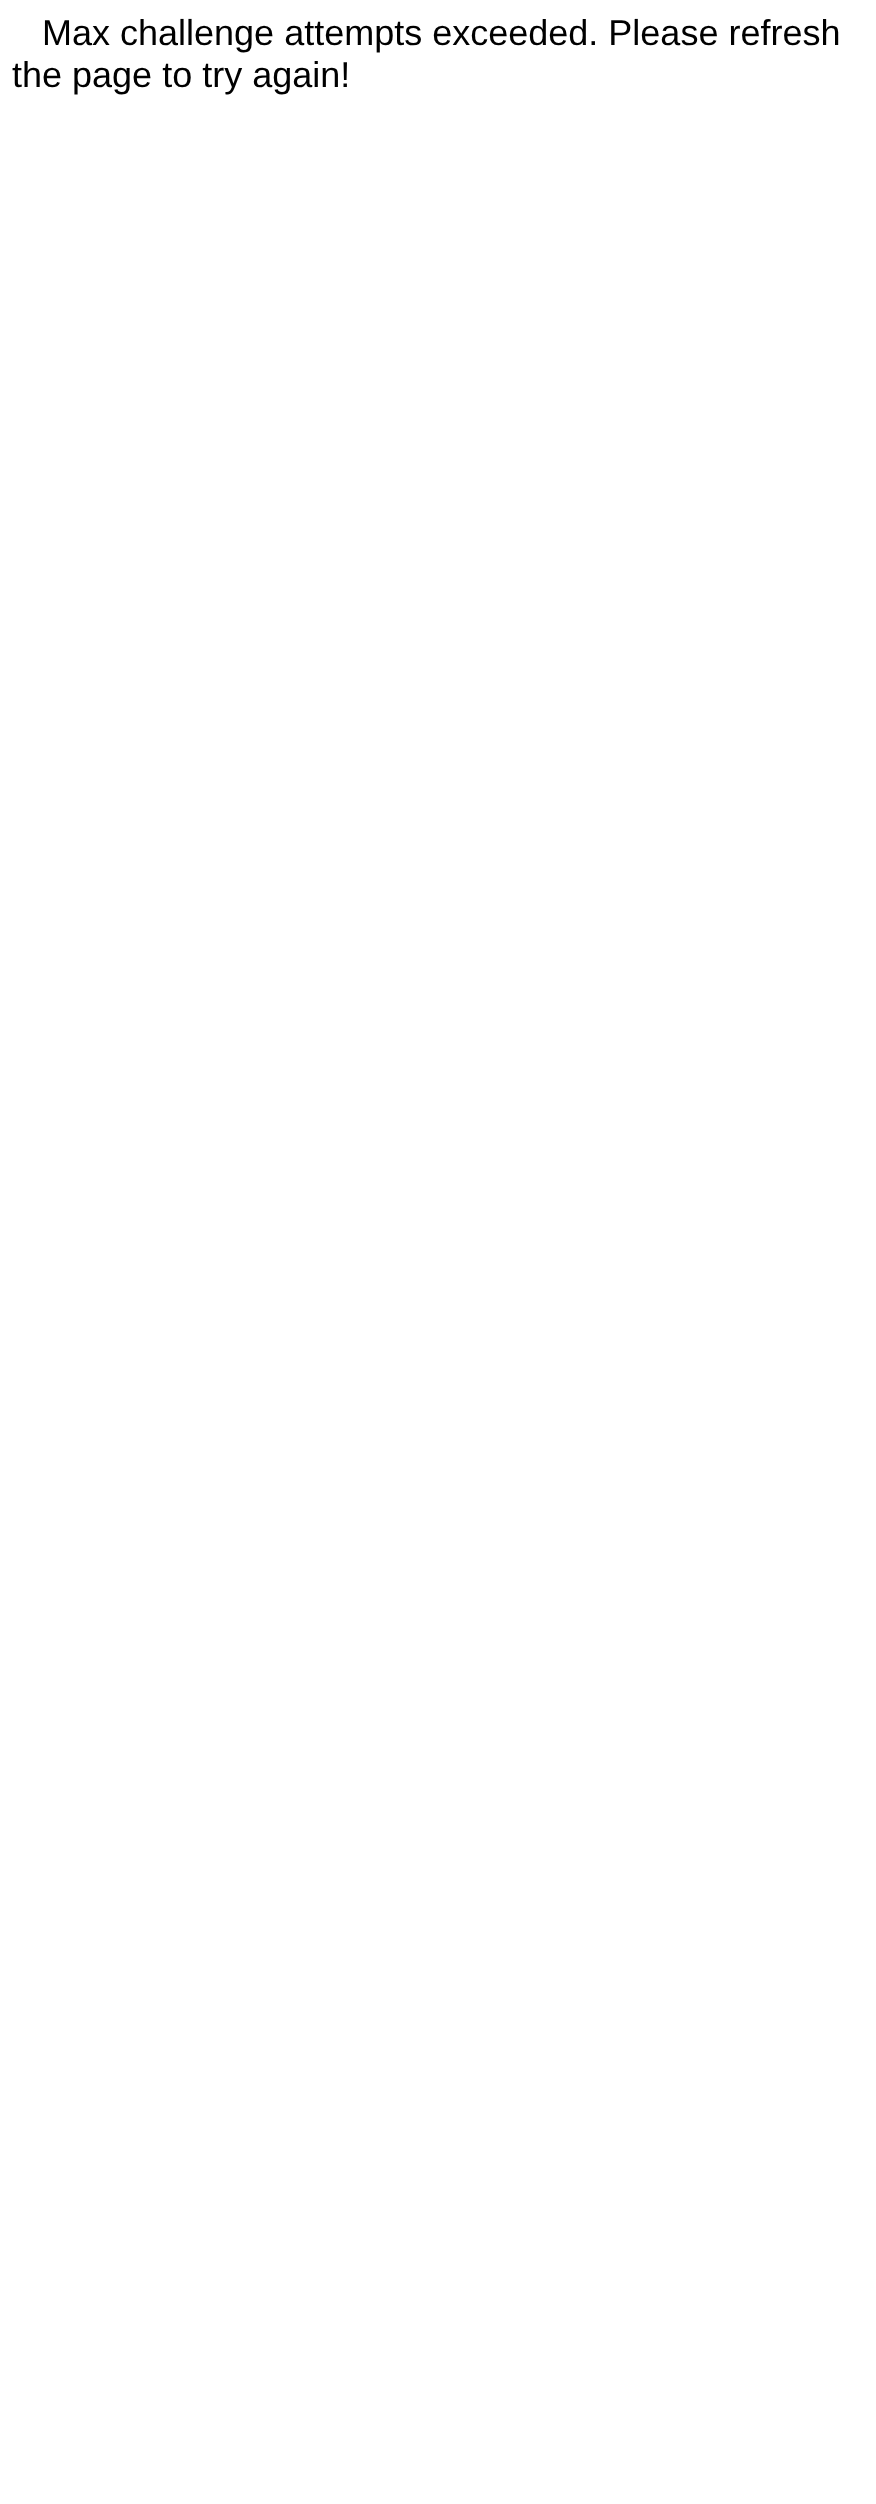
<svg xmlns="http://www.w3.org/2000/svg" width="876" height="2504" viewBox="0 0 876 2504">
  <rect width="100%" height="100%" fill="rgb(255,255,255)"/>
  <g font-family="Liberation Sans" font-size="36" fill="rgb(0,0,0)">
    <text x="42" y="45">Max challenge attempts exceeded. Please refresh</text>
    <text x="12" y="87">the page to try again!</text>
  </g>
</svg>
